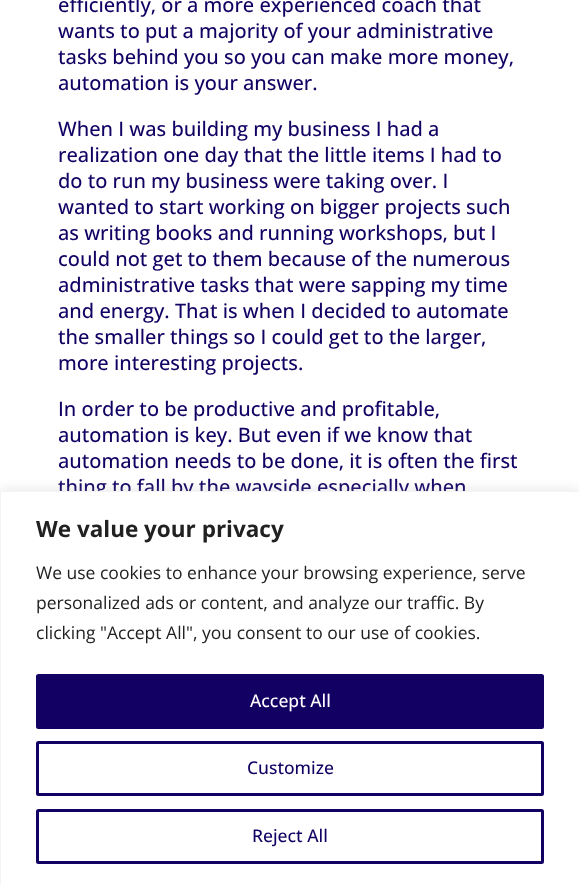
<svg xmlns="http://www.w3.org/2000/svg" width="579" height="884" viewBox="0 0 579 884">
  <rect width="100%" height="100%" fill="rgb(255,255,255)"/>
  <g font-family="Open Sans" font-size="20" font-weight="500" fill="rgb(18,0,99)">
    <text>
      <tspan x="58" y="12">efficiently, or a more experienced coach that</tspan>
      <tspan x="58" y="38">wants to put a majority of your administrative</tspan>
      <tspan x="58" y="64">tasks behind you so you can make more money,</tspan>
      <tspan x="58" y="90">automation is your answer.</tspan>
    </text>
    <text>
      <tspan x="58" y="136">When I was building my business I had a</tspan>
      <tspan x="58" y="162">realization one day that the little items I had to</tspan>
      <tspan x="58" y="188">do to run my business were taking over. I</tspan>
      <tspan x="58" y="214">wanted to start working on bigger projects such</tspan>
      <tspan x="58" y="240">as writing books and running workshops, but I</tspan>
      <tspan x="58" y="266">could not get to them because of the numerous</tspan>
      <tspan x="58" y="292">administrative tasks that were sapping my time</tspan>
      <tspan x="58" y="318">and energy. That is when I decided to automate</tspan>
      <tspan x="58" y="344">the smaller things so I could get to the larger,</tspan>
      <tspan x="58" y="370">more interesting projects.</tspan>
    </text>
    <text>
      <tspan x="58" y="416">In order to be productive and profitable,</tspan>
      <tspan x="58" y="442">automation is key. But even if we know that</tspan>
      <tspan x="58" y="468">automation needs to be done, it is often the first</tspan>
      <tspan x="58" y="494">thing to fall by the wayside especially when</tspan>
    </text>
  </g>
  <rect x="0" y="490" width="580" height="394" fill="rgba(172,171,171,0.3)" filter="blur(6px)"/>
  <rect x="0.5" y="491.5" width="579" height="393" fill="rgb(255,255,255)" stroke="rgb(244,244,244)"/>
  <text x="36" y="537" font-family="Open Sans" font-size="22.5" font-weight="bold" fill="rgb(33,33,33)">We value your privacy</text>
  <g font-family="Open Sans" font-size="17.5" fill="rgb(33,33,33)">
    <text>
      <tspan x="36" y="579">We use cookies to enhance your browsing experience, serve</tspan>
      <tspan x="36" y="609">personalized ads or content, and analyze our traffic. By</tspan>
      <tspan x="36" y="639">clicking "Accept All", you consent to our use of cookies.</tspan>
    </text>
  </g>
  <rect x="37.5" y="675.5" width="505" height="52" rx="1" fill="rgb(18,0,99)" stroke="rgb(18,0,99)" stroke-width="3"/>
  <text x="250" y="707" font-family="Open Sans" font-size="17.5" font-weight="500" fill="rgb(255,255,255)">Accept All</text>
  <rect x="37.5" y="742.5" width="505" height="52" rx="1" fill="none" stroke="rgb(18,0,99)" stroke-width="3"/>
  <text x="247" y="774" font-family="Open Sans" font-size="17.5" font-weight="500" fill="rgb(18,0,99)">Customize</text>
  <rect x="37.5" y="810.5" width="505" height="52" rx="1" fill="none" stroke="rgb(18,0,99)" stroke-width="3"/>
  <text x="252" y="842" font-family="Open Sans" font-size="17.5" font-weight="500" fill="rgb(18,0,99)">Reject All</text>
</svg>
